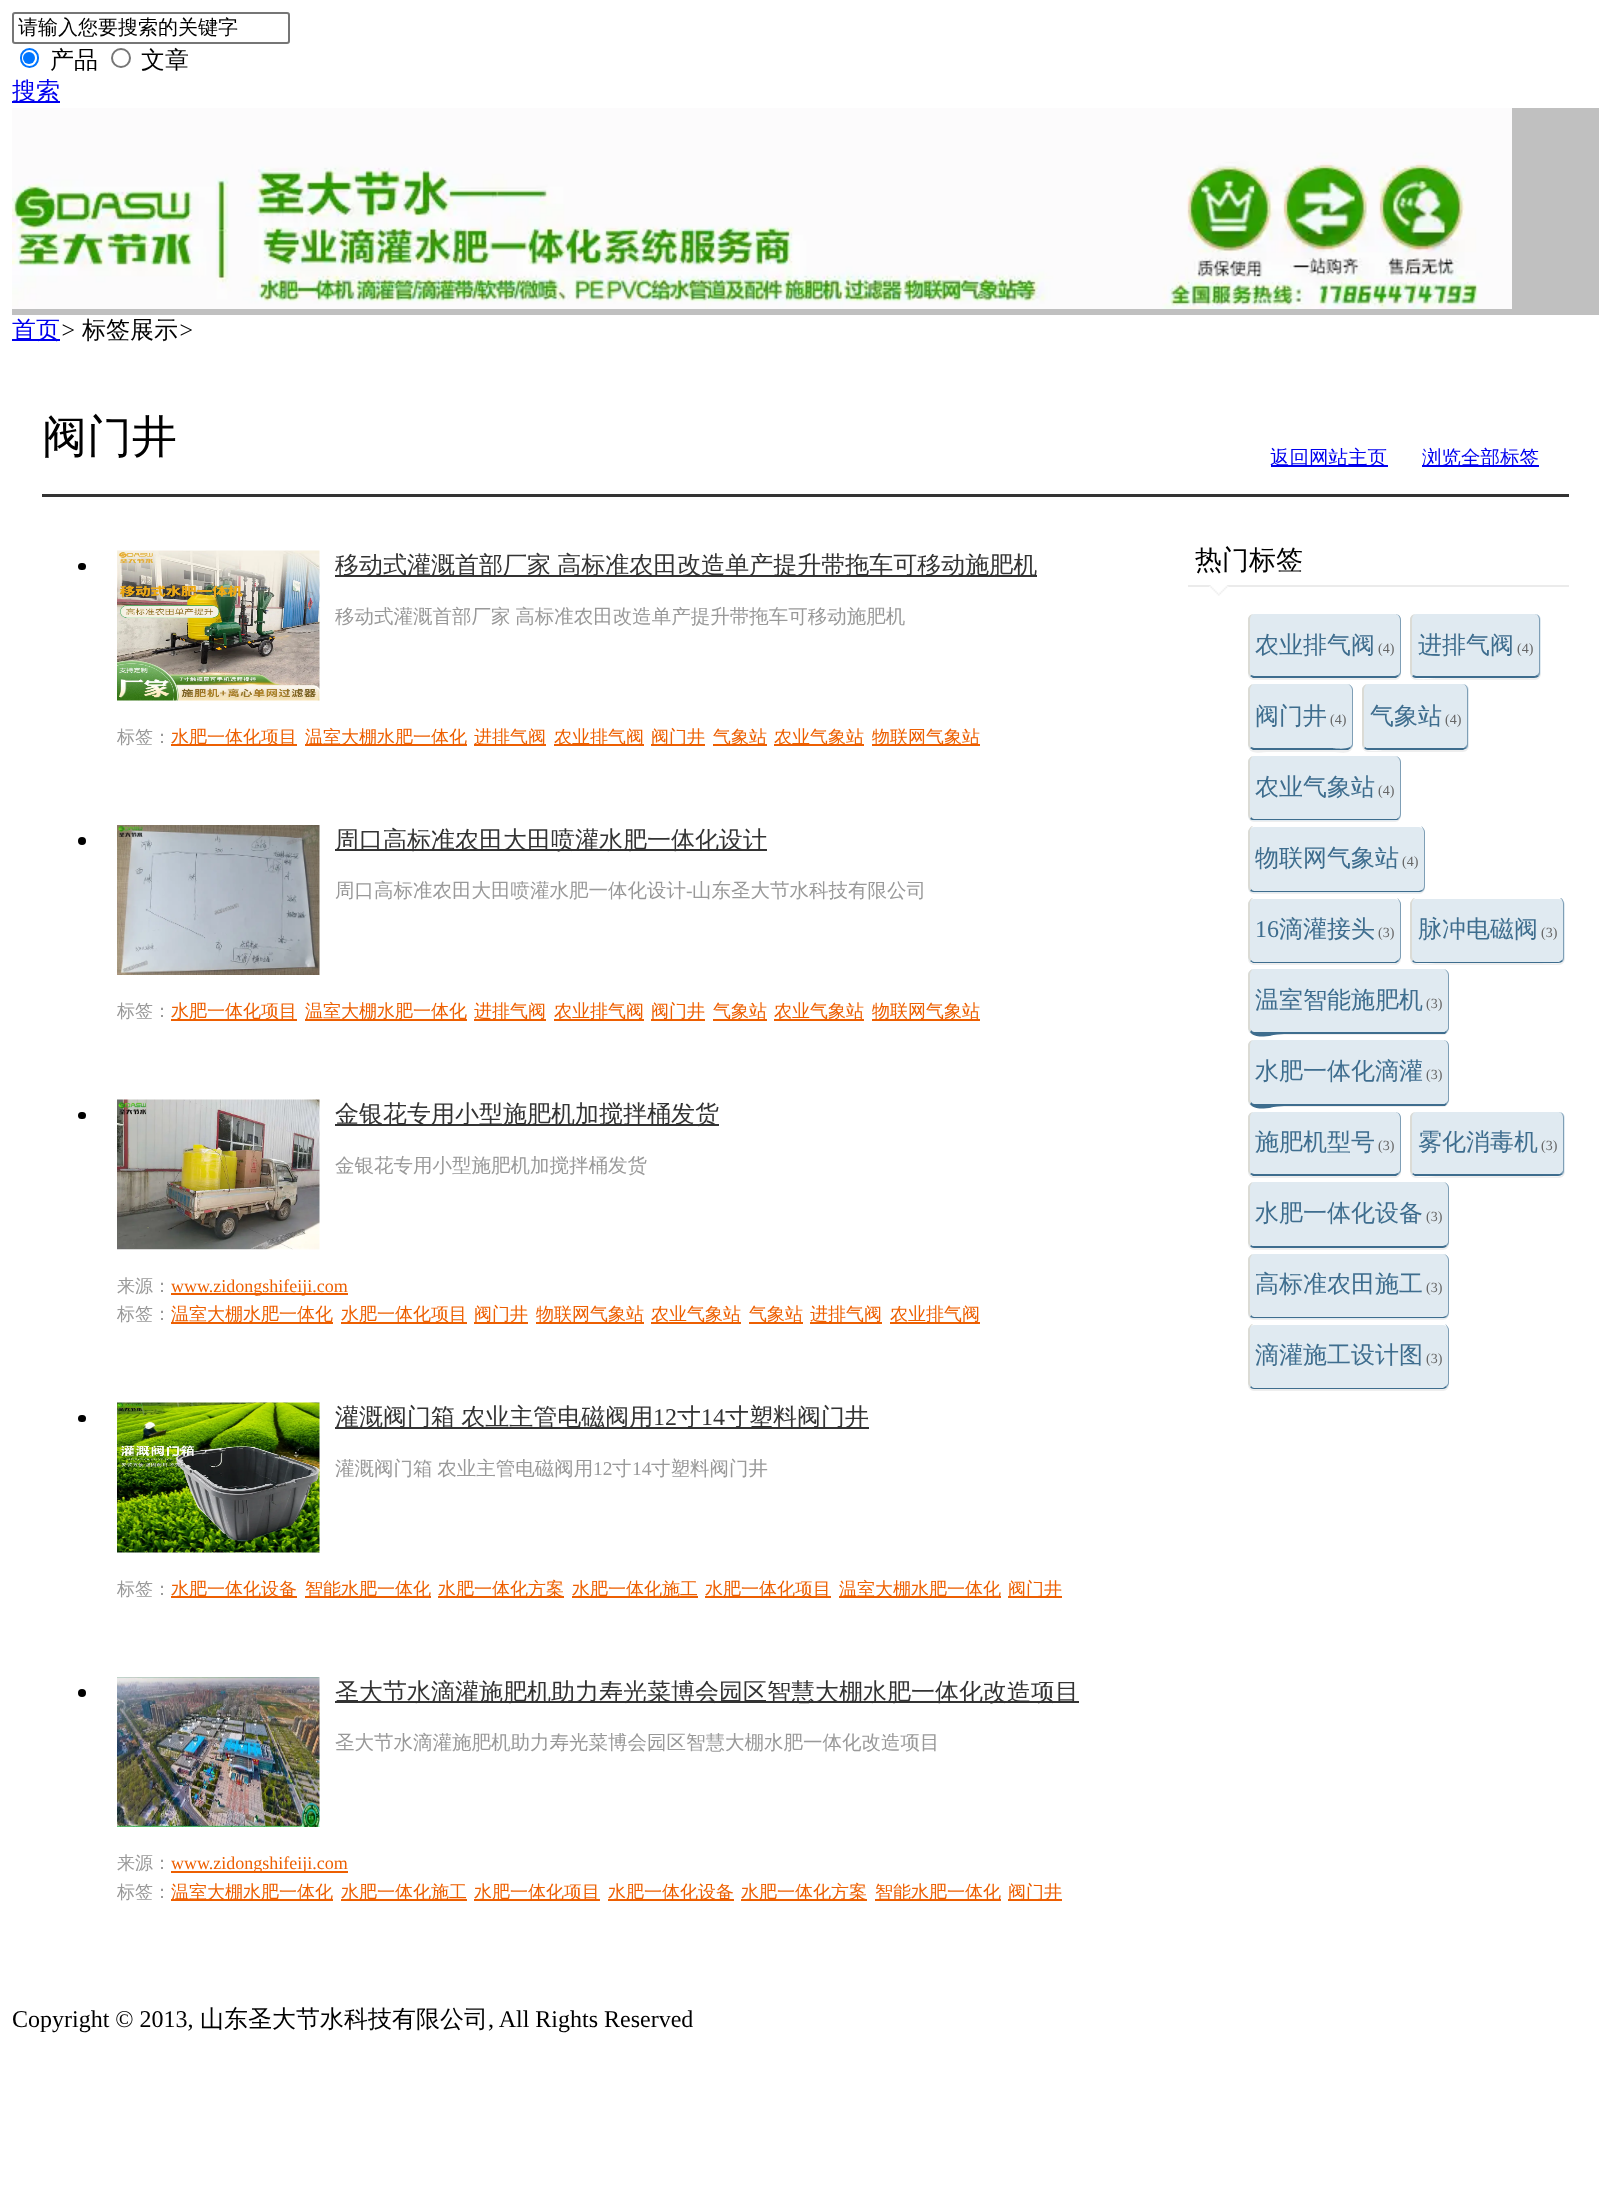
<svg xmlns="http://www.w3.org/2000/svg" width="1611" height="2186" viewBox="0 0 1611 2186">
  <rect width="100%" height="100%" fill="rgb(255,255,255)"/>
  <rect x="13" y="13" width="276" height="30" rx="2" fill="none" stroke="rgb(118,118,118)" stroke-width="2"/>
  <text x="18" y="34" font-family="WenQuanYi Zen Hei" font-size="20" font-weight="500" fill="rgb(0,0,0)">请输入您要搜索的关键字</text>
  <rect x="21" y="49" width="17" height="18" rx="8.5" fill="none" stroke="rgb(0,117,255)" stroke-width="2"/>
  <circle cx="29" cy="58" r="6" fill="rgb(0,117,255)"/>
  <text x="50" y="68" font-family="WenQuanYi Zen Hei" font-size="24" font-weight="500" fill="rgb(0,0,0)">产品</text>
  <circle cx="121" cy="58" r="9" fill="none" stroke="rgb(118,118,118)" stroke-width="2"/>
  <text x="141" y="68" font-family="WenQuanYi Zen Hei" font-size="24" font-weight="500" fill="rgb(0,0,0)">文章</text>
  <rect x="12" y="101" width="48" height="2" fill="rgb(0,0,238)"/>
  <text x="12" y="99" font-family="WenQuanYi Zen Hei" font-size="24" font-weight="500" fill="rgb(0,0,238)">搜索</text>
  <rect x="12" y="108" width="1587" height="207" fill="rgb(192,192,192)"/>
  <image x="12" y="108" width="1500" height="201" href="pic1.png"/>
  <rect x="12" y="339" width="48" height="2" fill="rgb(0,0,238)"/>
  <text x="12" y="338" font-family="WenQuanYi Zen Hei" font-size="24" font-weight="500" fill="rgb(0,0,238)">首页</text>
  <text x="60" y="338" font-family="Liberation Serif" font-size="24" font-style="italic" fill="rgb(0,0,0)">&gt;</text>
  <text x="82" y="338" font-family="WenQuanYi Zen Hei" font-size="24" font-weight="500" fill="rgb(0,0,0)">标签展示</text>
  <text x="178" y="338" font-family="Liberation Serif" font-size="24" font-style="italic" fill="rgb(0,0,0)">&gt;</text>
  <rect x="42" y="494" width="1527" height="3" fill="rgb(51,51,51)"/>
  <text x="42" y="452" font-family="WenQuanYi Zen Hei" font-size="45" font-weight="500" fill="rgb(0,0,0)">阀门井</text>
  <rect x="1271" y="465" width="117" height="2" fill="rgb(0,0,238)"/>
  <text x="1270" y="464" font-family="WenQuanYi Zen Hei" font-size="19.5" font-weight="500" fill="rgb(0,0,238)">返回网站主页</text>
  <rect x="1422" y="465" width="117" height="2" fill="rgb(0,0,238)"/>
  <text x="1422" y="464" font-family="WenQuanYi Zen Hei" font-size="19.5" font-weight="500" fill="rgb(0,0,238)">浏览全部标签</text>
  <rect x="78" y="563" width="8" height="7" rx="3.5" fill="rgb(0,0,0)"/>
  <image x="117" y="550" width="203" height="151" href="pic2.png"/>
  <rect x="335" y="575" width="702" height="2" fill="rgb(51,51,51)"/>
  <text x="335" y="573" word-spacing="-1" font-family="WenQuanYi Zen Hei" font-size="24" font-weight="500" fill="rgb(51,51,51)">移动式灌溉首部厂家 高标准农田改造单产提升带拖车可移动施肥机</text>
  <text x="335" y="623" word-spacing="-1" font-family="WenQuanYi Zen Hei" font-size="19.5" font-weight="500" fill="rgb(153,153,153)">移动式灌溉首部厂家 高标准农田改造单产提升带拖车可移动施肥机</text>
  <text x="117" y="743" font-family="WenQuanYi Zen Hei" font-size="18" font-weight="500" fill="rgb(153,153,153)">标签：</text>
  <rect x="171" y="744" width="126" height="2" fill="rgb(237,95,1)"/>
  <text x="171" y="743" font-family="WenQuanYi Zen Hei" font-size="18" font-weight="500" fill="rgb(237,95,1)">水肥一体化项目</text>
  <rect x="305" y="744" width="162" height="2" fill="rgb(237,95,1)"/>
  <text x="305" y="743" font-family="WenQuanYi Zen Hei" font-size="18" font-weight="500" fill="rgb(237,95,1)">温室大棚水肥一体化</text>
  <rect x="474" y="744" width="72" height="2" fill="rgb(237,95,1)"/>
  <text x="474" y="743" font-family="WenQuanYi Zen Hei" font-size="18" font-weight="500" fill="rgb(237,95,1)">进排气阀</text>
  <rect x="554" y="744" width="90" height="2" fill="rgb(237,95,1)"/>
  <text x="554" y="743" font-family="WenQuanYi Zen Hei" font-size="18" font-weight="500" fill="rgb(237,95,1)">农业排气阀</text>
  <rect x="651" y="744" width="54" height="2" fill="rgb(237,95,1)"/>
  <text x="651" y="743" font-family="WenQuanYi Zen Hei" font-size="18" font-weight="500" fill="rgb(237,95,1)">阀门井</text>
  <rect x="713" y="744" width="54" height="2" fill="rgb(237,95,1)"/>
  <text x="713" y="743" font-family="WenQuanYi Zen Hei" font-size="18" font-weight="500" fill="rgb(237,95,1)">气象站</text>
  <rect x="774" y="744" width="90" height="2" fill="rgb(237,95,1)"/>
  <text x="774" y="743" font-family="WenQuanYi Zen Hei" font-size="18" font-weight="500" fill="rgb(237,95,1)">农业气象站</text>
  <rect x="872" y="744" width="108" height="2" fill="rgb(237,95,1)"/>
  <text x="872" y="743" font-family="WenQuanYi Zen Hei" font-size="18" font-weight="500" fill="rgb(237,95,1)">物联网气象站</text>
  <circle cx="82" cy="841" r="4" fill="rgb(0,0,0)"/>
  <image x="117" y="825" width="203" height="150" href="pic3.png"/>
  <rect x="335" y="849" width="432" height="2" fill="rgb(51,51,51)"/>
  <text x="335" y="848" font-family="WenQuanYi Zen Hei" font-size="24" font-weight="500" fill="rgb(51,51,51)">周口高标准农田大田喷灌水肥一体化设计</text>
  <text x="335" y="897" font-family="WenQuanYi Zen Hei" font-size="19.5" font-weight="500" fill="rgb(153,153,153)">周口高标准农田大田喷灌水肥一体化设计</text>
  <text x="686" y="897" font-family="Liberation Serif" font-size="19.5" fill="rgb(153,153,153)">-</text>
  <text x="692" y="897" font-family="WenQuanYi Zen Hei" font-size="19.5" font-weight="500" fill="rgb(153,153,153)">山东圣大节水科技有限公司</text>
  <text x="117" y="1017" font-family="WenQuanYi Zen Hei" font-size="18" font-weight="500" fill="rgb(153,153,153)">标签：</text>
  <rect x="171" y="1019" width="126" height="2" fill="rgb(237,95,1)"/>
  <text x="171" y="1017" font-family="WenQuanYi Zen Hei" font-size="18" font-weight="500" fill="rgb(237,95,1)">水肥一体化项目</text>
  <rect x="305" y="1019" width="162" height="2" fill="rgb(237,95,1)"/>
  <text x="305" y="1017" font-family="WenQuanYi Zen Hei" font-size="18" font-weight="500" fill="rgb(237,95,1)">温室大棚水肥一体化</text>
  <rect x="474" y="1019" width="72" height="2" fill="rgb(237,95,1)"/>
  <text x="474" y="1017" font-family="WenQuanYi Zen Hei" font-size="18" font-weight="500" fill="rgb(237,95,1)">进排气阀</text>
  <rect x="554" y="1019" width="90" height="2" fill="rgb(237,95,1)"/>
  <text x="554" y="1017" font-family="WenQuanYi Zen Hei" font-size="18" font-weight="500" fill="rgb(237,95,1)">农业排气阀</text>
  <rect x="651" y="1019" width="54" height="2" fill="rgb(237,95,1)"/>
  <text x="651" y="1017" font-family="WenQuanYi Zen Hei" font-size="18" font-weight="500" fill="rgb(237,95,1)">阀门井</text>
  <rect x="713" y="1019" width="54" height="2" fill="rgb(237,95,1)"/>
  <text x="713" y="1017" font-family="WenQuanYi Zen Hei" font-size="18" font-weight="500" fill="rgb(237,95,1)">气象站</text>
  <rect x="774" y="1019" width="90" height="2" fill="rgb(237,95,1)"/>
  <text x="774" y="1017" font-family="WenQuanYi Zen Hei" font-size="18" font-weight="500" fill="rgb(237,95,1)">农业气象站</text>
  <rect x="872" y="1019" width="108" height="2" fill="rgb(237,95,1)"/>
  <text x="872" y="1017" font-family="WenQuanYi Zen Hei" font-size="18" font-weight="500" fill="rgb(237,95,1)">物联网气象站</text>
  <rect x="78" y="1112" width="8" height="7" rx="3.5" fill="rgb(0,0,0)"/>
  <image x="117" y="1099" width="203" height="151" href="pic4.png"/>
  <rect x="335" y="1124" width="384" height="2" fill="rgb(51,51,51)"/>
  <text x="335" y="1122" font-family="WenQuanYi Zen Hei" font-size="24" font-weight="500" fill="rgb(51,51,51)">金银花专用小型施肥机加搅拌桶发货</text>
  <text x="335" y="1172" font-family="WenQuanYi Zen Hei" font-size="19.5" font-weight="500" fill="rgb(153,153,153)">金银花专用小型施肥机加搅拌桶发货</text>
  <text x="117" y="1292" font-family="WenQuanYi Zen Hei" font-size="18" font-weight="500" fill="rgb(153,153,153)">来源：</text>
  <rect x="171" y="1293" width="177" height="2" fill="rgb(237,95,1)"/>
  <text x="171" y="1292" font-family="Liberation Serif" font-size="18" fill="rgb(237,95,1)">www.zidongshifeiji.com</text>
  <text x="117" y="1320" font-family="WenQuanYi Zen Hei" font-size="18" font-weight="500" fill="rgb(153,153,153)">标签：</text>
  <rect x="171" y="1322" width="162" height="2" fill="rgb(237,95,1)"/>
  <text x="171" y="1320" font-family="WenQuanYi Zen Hei" font-size="18" font-weight="500" fill="rgb(237,95,1)">温室大棚水肥一体化</text>
  <rect x="341" y="1322" width="126" height="2" fill="rgb(237,95,1)"/>
  <text x="341" y="1320" font-family="WenQuanYi Zen Hei" font-size="18" font-weight="500" fill="rgb(237,95,1)">水肥一体化项目</text>
  <rect x="474" y="1322" width="54" height="2" fill="rgb(237,95,1)"/>
  <text x="474" y="1320" font-family="WenQuanYi Zen Hei" font-size="18" font-weight="500" fill="rgb(237,95,1)">阀门井</text>
  <rect x="536" y="1322" width="108" height="2" fill="rgb(237,95,1)"/>
  <text x="536" y="1320" font-family="WenQuanYi Zen Hei" font-size="18" font-weight="500" fill="rgb(237,95,1)">物联网气象站</text>
  <rect x="651" y="1322" width="90" height="2" fill="rgb(237,95,1)"/>
  <text x="651" y="1320" font-family="WenQuanYi Zen Hei" font-size="18" font-weight="500" fill="rgb(237,95,1)">农业气象站</text>
  <rect x="749" y="1322" width="54" height="2" fill="rgb(237,95,1)"/>
  <text x="749" y="1320" font-family="WenQuanYi Zen Hei" font-size="18" font-weight="500" fill="rgb(237,95,1)">气象站</text>
  <rect x="810" y="1322" width="72" height="2" fill="rgb(237,95,1)"/>
  <text x="810" y="1320" font-family="WenQuanYi Zen Hei" font-size="18" font-weight="500" fill="rgb(237,95,1)">进排气阀</text>
  <rect x="890" y="1322" width="90" height="2" fill="rgb(237,95,1)"/>
  <text x="890" y="1320" font-family="WenQuanYi Zen Hei" font-size="18" font-weight="500" fill="rgb(237,95,1)">农业排气阀</text>
  <rect x="78" y="1415" width="8" height="7" rx="3.5" fill="rgb(0,0,0)"/>
  <image x="117" y="1402" width="203" height="151" href="pic5.png"/>
  <rect x="335" y="1427" width="534" height="2" fill="rgb(51,51,51)"/>
  <text x="335" y="1425" word-spacing="-1" font-family="WenQuanYi Zen Hei" font-size="24" font-weight="500" fill="rgb(51,51,51)">灌溉阀门箱 农业主管电磁阀用</text>
  <text x="653" y="1425" font-family="Liberation Serif" font-size="24" fill="rgb(51,51,51)">12</text>
  <text x="677" y="1425" font-family="WenQuanYi Zen Hei" font-size="24" font-weight="500" fill="rgb(51,51,51)">寸</text>
  <text x="701" y="1425" font-family="Liberation Serif" font-size="24" fill="rgb(51,51,51)">14</text>
  <text x="725" y="1425" font-family="WenQuanYi Zen Hei" font-size="24" font-weight="500" fill="rgb(51,51,51)">寸塑料阀门井</text>
  <text x="335" y="1475" word-spacing="-1" font-family="WenQuanYi Zen Hei" font-size="19.5" font-weight="500" fill="rgb(153,153,153)">灌溉阀门箱 农业主管电磁阀用</text>
  <text x="593" y="1475" font-family="Liberation Serif" font-size="19.5" fill="rgb(153,153,153)">12</text>
  <text x="612" y="1475" font-family="WenQuanYi Zen Hei" font-size="19.5" font-weight="500" fill="rgb(153,153,153)">寸</text>
  <text x="632" y="1475" font-family="Liberation Serif" font-size="19.5" fill="rgb(153,153,153)">14</text>
  <text x="651" y="1475" font-family="WenQuanYi Zen Hei" font-size="19.5" font-weight="500" fill="rgb(153,153,153)">寸塑料阀门井</text>
  <text x="117" y="1595" font-family="WenQuanYi Zen Hei" font-size="18" font-weight="500" fill="rgb(153,153,153)">标签：</text>
  <rect x="171" y="1596" width="126" height="2" fill="rgb(237,95,1)"/>
  <text x="171" y="1595" font-family="WenQuanYi Zen Hei" font-size="18" font-weight="500" fill="rgb(237,95,1)">水肥一体化设备</text>
  <rect x="305" y="1596" width="126" height="2" fill="rgb(237,95,1)"/>
  <text x="305" y="1595" font-family="WenQuanYi Zen Hei" font-size="18" font-weight="500" fill="rgb(237,95,1)">智能水肥一体化</text>
  <rect x="438" y="1596" width="126" height="2" fill="rgb(237,95,1)"/>
  <text x="438" y="1595" font-family="WenQuanYi Zen Hei" font-size="18" font-weight="500" fill="rgb(237,95,1)">水肥一体化方案</text>
  <rect x="572" y="1596" width="126" height="2" fill="rgb(237,95,1)"/>
  <text x="572" y="1595" font-family="WenQuanYi Zen Hei" font-size="18" font-weight="500" fill="rgb(237,95,1)">水肥一体化施工</text>
  <rect x="705" y="1596" width="126" height="2" fill="rgb(237,95,1)"/>
  <text x="705" y="1595" font-family="WenQuanYi Zen Hei" font-size="18" font-weight="500" fill="rgb(237,95,1)">水肥一体化项目</text>
  <rect x="839" y="1596" width="162" height="2" fill="rgb(237,95,1)"/>
  <text x="839" y="1595" font-family="WenQuanYi Zen Hei" font-size="18" font-weight="500" fill="rgb(237,95,1)">温室大棚水肥一体化</text>
  <rect x="1008" y="1596" width="54" height="2" fill="rgb(237,95,1)"/>
  <text x="1008" y="1595" font-family="WenQuanYi Zen Hei" font-size="18" font-weight="500" fill="rgb(237,95,1)">阀门井</text>
  <circle cx="82" cy="1693" r="4" fill="rgb(0,0,0)"/>
  <image x="117" y="1677" width="203" height="150" href="pic6.png"/>
  <rect x="335" y="1701" width="744" height="2" fill="rgb(51,51,51)"/>
  <text x="335" y="1700" font-family="WenQuanYi Zen Hei" font-size="24" font-weight="500" fill="rgb(51,51,51)">圣大节水滴灌施肥机助力寿光菜博会园区智慧大棚水肥一体化改造项目</text>
  <text x="335" y="1749" font-family="WenQuanYi Zen Hei" font-size="19.5" font-weight="500" fill="rgb(153,153,153)">圣大节水滴灌施肥机助力寿光菜博会园区智慧大棚水肥一体化改造项目</text>
  <text x="117" y="1869" font-family="WenQuanYi Zen Hei" font-size="18" font-weight="500" fill="rgb(153,153,153)">来源：</text>
  <rect x="171" y="1871" width="177" height="2" fill="rgb(237,95,1)"/>
  <text x="171" y="1869" font-family="Liberation Serif" font-size="18" fill="rgb(237,95,1)">www.zidongshifeiji.com</text>
  <text x="117" y="1898" font-family="WenQuanYi Zen Hei" font-size="18" font-weight="500" fill="rgb(153,153,153)">标签：</text>
  <rect x="171" y="1899" width="162" height="2" fill="rgb(237,95,1)"/>
  <text x="171" y="1898" font-family="WenQuanYi Zen Hei" font-size="18" font-weight="500" fill="rgb(237,95,1)">温室大棚水肥一体化</text>
  <rect x="341" y="1899" width="126" height="2" fill="rgb(237,95,1)"/>
  <text x="341" y="1898" font-family="WenQuanYi Zen Hei" font-size="18" font-weight="500" fill="rgb(237,95,1)">水肥一体化施工</text>
  <rect x="474" y="1899" width="126" height="2" fill="rgb(237,95,1)"/>
  <text x="474" y="1898" font-family="WenQuanYi Zen Hei" font-size="18" font-weight="500" fill="rgb(237,95,1)">水肥一体化项目</text>
  <rect x="608" y="1899" width="126" height="2" fill="rgb(237,95,1)"/>
  <text x="608" y="1898" font-family="WenQuanYi Zen Hei" font-size="18" font-weight="500" fill="rgb(237,95,1)">水肥一体化设备</text>
  <rect x="741" y="1899" width="126" height="2" fill="rgb(237,95,1)"/>
  <text x="741" y="1898" font-family="WenQuanYi Zen Hei" font-size="18" font-weight="500" fill="rgb(237,95,1)">水肥一体化方案</text>
  <rect x="875" y="1899" width="126" height="2" fill="rgb(237,95,1)"/>
  <text x="875" y="1898" font-family="WenQuanYi Zen Hei" font-size="18" font-weight="500" fill="rgb(237,95,1)">智能水肥一体化</text>
  <rect x="1008" y="1899" width="54" height="2" fill="rgb(237,95,1)"/>
  <text x="1008" y="1898" font-family="WenQuanYi Zen Hei" font-size="18" font-weight="500" fill="rgb(237,95,1)">阀门井</text>
  <rect x="1188" y="585" width="381" height="2" fill="rgb(235,235,235)"/>
  <text x="1195" y="569" font-family="WenQuanYi Zen Hei" font-size="27" font-weight="500" fill="rgb(0,0,0)">热门标签</text>
  <image x="1209" y="585" width="20" height="11" href="pic7.png"/>
  <path d="M1248 672V674C1248 677 1251 680 1254 680H1395C1398 680 1401 677 1401 674V672C1401 675 1398 678 1395 678H1254C1251 678 1248 675 1248 672Z" fill="rgb(238,238,238)"/>
  <rect x="1248" y="614" width="153" height="64" rx="6" fill="rgb(224,234,241)"/>
  <path d="M1401 672V620C1401 616 1398 614 1395 614C1397 614 1400 616 1400 620V672C1400 673 1399 674 1398 675L1399 676C1400 675 1401 674 1401 672Z" fill="rgb(127,159,182)"/>
  <path d="M1251 675L1254 676H1395L1398 675L1399 676L1396 678H1253L1250 676Z" fill="rgb(62,109,142)"/>
  <path d="M1254 614C1252 614 1250 616 1250 620V672C1250 673 1250 674 1251 675L1250 676C1249 675 1248 674 1248 672V620C1248 616 1251 614 1254 614Z" fill="rgb(219,219,213)"/>
  <text x="1255" y="653" font-family="WenQuanYi Zen Hei" font-size="24" font-weight="500" fill="rgb(62,109,142)">农业排气阀</text>
  <text x="1378" y="653" font-family="Liberation Serif" font-size="14" fill="rgb(102,102,102)">(4)</text>
  <path d="M1410 672V674C1410 677 1413 680 1416 680H1535C1538 680 1541 677 1541 674V621L1540 618V654C1540 682 1544 678 1515 678H1436C1435 678 1410 683 1410 672Z" fill="rgb(238,238,238)"/>
  <rect x="1410" y="614" width="131" height="64" rx="6" fill="rgb(224,234,241)"/>
  <path d="M1539 676C1540 675 1540 673 1540 672V620C1540 616 1538 614 1534 614C1537 614 1539 616 1539 620V672C1539 673 1538 674 1537 675Z" fill="rgb(127,159,182)"/>
  <path d="M1413 675L1416 676H1535L1537 675L1539 676C1538 677 1536 678 1534 678H1416C1414 678 1413 677 1412 676Z" fill="rgb(62,109,142)"/>
  <path d="M1416 614C1414 614 1412 616 1412 620V672C1412 673 1412 674 1413 675L1412 676C1411 675 1410 674 1410 672V620C1410 616 1413 614 1416 614Z" fill="rgb(219,219,213)"/>
  <text x="1418" y="653" font-family="WenQuanYi Zen Hei" font-size="24" font-weight="500" fill="rgb(62,109,142)">进排气阀</text>
  <text x="1517" y="653" font-family="Liberation Serif" font-size="14" fill="rgb(102,102,102)">(4)</text>
  <path d="M1248 744C1248 756 1260 752 1270 752H1332C1341 752 1353 756 1353 744C1353 747 1350 750 1347 750H1254C1251 750 1248 747 1248 744Z" fill="rgb(238,238,238)"/>
  <rect x="1248" y="684" width="105" height="66" rx="6" fill="rgb(224,234,241)"/>
  <path d="M1353 690C1353 687 1350 684 1347 684C1349 684 1352 687 1352 690V744C1352 745 1351 746 1350 747L1351 748C1352 747 1353 746 1353 744Z" fill="rgb(127,159,182)"/>
  <path d="M1251 747L1254 748H1332C1332 748 1345 750 1350 747L1351 748L1348 750H1253L1250 748Z" fill="rgb(62,109,142)"/>
  <path d="M1254 684C1251 684 1248 687 1248 690V744C1248 746 1249 747 1250 748L1251 747C1250 746 1250 745 1250 744V690C1250 687 1252 684 1254 684Z" fill="rgb(219,219,213)"/>
  <text x="1255" y="724" font-family="WenQuanYi Zen Hei" font-size="24" font-weight="500" fill="rgb(62,109,142)">阀门井</text>
  <text x="1330" y="724" font-family="Liberation Serif" font-size="14" fill="rgb(102,102,102)">(4)</text>
  <path d="M1362 744V746C1362 749 1365 752 1368 752H1463C1466 752 1469 749 1469 746V692L1468 690V726C1468 752 1473 750 1447 750H1384C1381 750 1362 754 1362 744Z" fill="rgb(238,238,238)"/>
  <rect x="1362" y="684" width="107" height="66" rx="6" fill="rgb(224,234,241)"/>
  <path d="M1468 690C1468 687 1466 684 1462 684C1465 684 1467 687 1467 690V744C1467 745 1466 746 1465 747L1467 748C1468 747 1468 745 1468 744Z" fill="rgb(127,159,182)"/>
  <path d="M1368 750H1463L1467 748L1465 747C1465 748 1463 748 1462 748H1368C1367 748 1366 748 1365 747L1364 748C1365 749 1366 750 1368 750Z" fill="rgb(62,109,142)"/>
  <path d="M1368 684C1365 684 1362 687 1362 690V744C1362 746 1363 747 1364 748L1365 747C1364 746 1364 745 1364 744V690C1364 687 1366 684 1368 684Z" fill="rgb(219,219,213)"/>
  <text x="1370" y="724" font-family="WenQuanYi Zen Hei" font-size="24" font-weight="500" fill="rgb(62,109,142)">气象站</text>
  <text x="1445" y="724" font-family="Liberation Serif" font-size="14" fill="rgb(102,102,102)">(4)</text>
  <path d="M1248 814V816C1248 819 1251 822 1254 822H1395C1398 822 1401 819 1401 816V814C1401 818 1398 820 1395 820H1254C1251 820 1248 818 1248 814Z" fill="rgb(238,238,238)"/>
  <rect x="1248" y="756" width="153" height="65" rx="6" fill="rgb(224,234,241)"/>
  <path d="M1401 762C1401 759 1398 756 1395 756C1397 756 1400 759 1400 762V814C1400 816 1399 817 1398 818L1399 819C1400 818 1401 816 1401 814Z" fill="rgb(127,159,182)"/>
  <path d="M1251 817C1252 818 1253 819 1254 819H1395C1396 819 1397 819 1398 818L1399 819C1398 820 1396 820 1395 820H1254C1253 820 1251 820 1250 819Z" fill="rgb(62,109,142)"/>
  <path d="M1254 756C1251 756 1248 759 1248 762V814C1248 816 1249 818 1250 819L1251 817C1250 817 1250 815 1250 814V762C1250 759 1252 756 1254 756Z" fill="rgb(219,219,213)"/>
  <text x="1255" y="795" font-family="WenQuanYi Zen Hei" font-size="24" font-weight="500" fill="rgb(62,109,142)">农业气象站</text>
  <text x="1378" y="795" font-family="Liberation Serif" font-size="14" fill="rgb(102,102,102)">(4)</text>
  <path d="M1248 886V888C1248 891 1251 894 1254 894H1419C1422 894 1425 891 1425 888V886C1425 890 1422 892 1419 892H1254C1251 892 1248 890 1248 886Z" fill="rgb(238,238,238)"/>
  <rect x="1248" y="827" width="177" height="66" rx="6" fill="rgb(224,234,241)"/>
  <path d="M1422 890C1423 889 1424 888 1424 886V832C1424 830 1422 827 1421 826C1423 827 1425 830 1425 832V886C1425 888 1424 890 1423 891Z" fill="rgb(127,159,182)"/>
  <path d="M1251 889C1252 890 1253 891 1254 891H1419L1422 890L1423 891L1420 892H1253L1250 891Z" fill="rgb(62,109,142)"/>
  <path d="M1253 826C1251 827 1251 829 1250 830V887L1251 889L1250 891C1249 890 1248 888 1248 886V832C1248 830 1250 827 1252 826Z" fill="rgb(219,219,213)"/>
  <text x="1255" y="866" font-family="WenQuanYi Zen Hei" font-size="24" font-weight="500" fill="rgb(62,109,142)">物联网气象站</text>
  <text x="1402" y="866" font-family="Liberation Serif" font-size="14" fill="rgb(102,102,102)">(4)</text>
  <path d="M1248 957V959C1248 962 1251 965 1254 965H1395C1398 965 1401 962 1401 959V957C1401 960 1398 963 1395 963H1254C1251 963 1248 960 1248 957Z" fill="rgb(238,238,238)"/>
  <rect x="1248" y="899" width="153" height="64" rx="6" fill="rgb(224,234,241)"/>
  <path d="M1398 960C1399 959 1400 958 1400 957V904C1400 902 1398 899 1397 898C1399 899 1401 902 1401 904V957C1401 958 1400 960 1399 961Z" fill="rgb(127,159,182)"/>
  <path d="M1251 960C1252 961 1253 962 1254 962H1395L1398 960L1399 961L1396 963H1253L1250 961Z" fill="rgb(62,109,142)"/>
  <path d="M1253 898C1251 899 1251 901 1250 902V957L1251 960L1250 961C1249 960 1248 958 1248 957V904C1248 902 1250 899 1252 898Z" fill="rgb(219,219,213)"/>
  <text x="1255" y="937" font-family="Liberation Serif" font-size="24" fill="rgb(62,109,142)">16</text>
  <text x="1279" y="937" font-family="WenQuanYi Zen Hei" font-size="24" font-weight="500" fill="rgb(62,109,142)">滴灌接头</text>
  <text x="1378" y="937" font-family="Liberation Serif" font-size="14" fill="rgb(102,102,102)">(3)</text>
  <path d="M1410 957V959C1410 962 1413 965 1416 965H1559C1562 965 1565 962 1565 959V906L1564 903V940C1564 969 1567 963 1535 963H1440C1428 963 1410 967 1410 957Z" fill="rgb(238,238,238)"/>
  <rect x="1410" y="899" width="155" height="64" rx="6" fill="rgb(224,234,241)"/>
  <path d="M1562 960C1563 959 1563 958 1563 957V904C1563 902 1562 899 1560 898H1561C1563 899 1564 902 1564 904V957C1564 958 1564 960 1563 961Z" fill="rgb(127,159,182)"/>
  <path d="M1416 963H1558C1560 963 1562 962 1563 961L1562 960L1559 962H1416C1415 962 1414 961 1413 960L1412 961C1413 962 1414 963 1416 963Z" fill="rgb(62,109,142)"/>
  <path d="M1415 898C1413 899 1413 901 1412 902V957L1413 960L1412 961C1411 960 1410 958 1410 957V904C1410 902 1412 899 1414 898Z" fill="rgb(219,219,213)"/>
  <text x="1418" y="937" font-family="WenQuanYi Zen Hei" font-size="24" font-weight="500" fill="rgb(62,109,142)">脉冲电磁阀</text>
  <text x="1541" y="937" font-family="Liberation Serif" font-size="14" fill="rgb(102,102,102)">(3)</text>
  <path d="M1248 1028V1029C1248 1032 1251 1035 1254 1035H1443C1446 1035 1449 1032 1449 1029V1028C1449 1031 1446 1034 1443 1034H1254C1251 1034 1248 1031 1248 1028Z" fill="rgb(238,238,238)"/>
  <rect x="1248" y="969" width="201" height="65" rx="6" fill="rgb(224,234,241)"/>
  <path d="M1449 975C1449 972 1446 969 1443 969C1445 969 1448 972 1448 975V1028C1448 1029 1447 1030 1446 1031L1447 1032C1448 1031 1449 1029 1449 1028Z" fill="rgb(127,159,182)"/>
  <path d="M1251 1030C1252 1031 1253 1032 1254 1032H1443C1444 1032 1445 1032 1446 1031L1447 1032L1445 1034H1284C1272 1034 1257 1041 1250 1032Z" fill="rgb(62,109,142)"/>
  <path d="M1254 969C1251 969 1248 972 1248 975V1028C1248 1029 1249 1031 1250 1032L1251 1030L1250 1028V975C1250 972 1252 969 1254 969Z" fill="rgb(219,219,213)"/>
  <text x="1255" y="1008" font-family="WenQuanYi Zen Hei" font-size="24" font-weight="500" fill="rgb(62,109,142)">温室智能施肥机</text>
  <text x="1426" y="1008" font-family="Liberation Serif" font-size="14" fill="rgb(102,102,102)">(3)</text>
  <path d="M1248 1100V1101C1248 1104 1251 1107 1254 1107H1443C1446 1107 1449 1104 1449 1101V1100C1449 1103 1446 1106 1443 1106H1254C1251 1106 1248 1103 1248 1100Z" fill="rgb(238,238,238)"/>
  <rect x="1248" y="1040" width="201" height="66" rx="6" fill="rgb(224,234,241)"/>
  <path d="M1449 1100V1046C1449 1042 1446 1040 1443 1040C1445 1040 1448 1042 1448 1046V1100C1448 1101 1447 1102 1446 1103L1447 1104C1448 1103 1449 1101 1449 1100Z" fill="rgb(127,159,182)"/>
  <path d="M1251 1102C1252 1103 1253 1104 1254 1104H1443C1444 1104 1445 1104 1446 1103L1447 1104L1445 1106H1284C1272 1106 1257 1113 1250 1104Z" fill="rgb(62,109,142)"/>
  <path d="M1254 1040C1252 1040 1250 1042 1250 1046V1100L1251 1102L1250 1104C1249 1103 1248 1101 1248 1100V1046C1248 1042 1251 1040 1254 1040Z" fill="rgb(219,219,213)"/>
  <text x="1255" y="1079" font-family="WenQuanYi Zen Hei" font-size="24" font-weight="500" fill="rgb(62,109,142)">水肥一体化滴灌</text>
  <text x="1426" y="1079" font-family="Liberation Serif" font-size="14" fill="rgb(102,102,102)">(3)</text>
  <path d="M1248 1170V1172C1248 1175 1251 1178 1254 1178H1395C1398 1178 1401 1175 1401 1172V1170C1401 1173 1398 1176 1395 1176H1254C1251 1176 1248 1173 1248 1170Z" fill="rgb(238,238,238)"/>
  <rect x="1248" y="1112" width="153" height="64" rx="6" fill="rgb(224,234,241)"/>
  <path d="M1401 1170V1118C1401 1114 1398 1112 1395 1112C1397 1112 1400 1114 1400 1118V1170C1400 1171 1399 1172 1398 1173L1399 1174C1400 1173 1401 1172 1401 1170Z" fill="rgb(127,159,182)"/>
  <path d="M1251 1173L1254 1174H1395L1398 1173L1399 1174L1396 1176H1253L1250 1174Z" fill="rgb(62,109,142)"/>
  <path d="M1254 1112C1252 1112 1250 1114 1250 1118V1170C1250 1171 1250 1172 1251 1173L1250 1174C1249 1173 1248 1172 1248 1170V1118C1248 1114 1251 1112 1254 1112Z" fill="rgb(219,219,213)"/>
  <text x="1255" y="1150" font-family="WenQuanYi Zen Hei" font-size="24" font-weight="500" fill="rgb(62,109,142)">施肥机型号</text>
  <text x="1378" y="1150" font-family="Liberation Serif" font-size="14" fill="rgb(102,102,102)">(3)</text>
  <path d="M1410 1170V1172C1410 1175 1413 1178 1416 1178H1559C1562 1178 1565 1175 1565 1172V1119L1564 1116V1152C1564 1182 1567 1176 1535 1176H1440C1428 1176 1410 1180 1410 1170Z" fill="rgb(238,238,238)"/>
  <rect x="1410" y="1112" width="155" height="64" rx="6" fill="rgb(224,234,241)"/>
  <path d="M1563 1174C1564 1173 1564 1171 1564 1170V1118C1564 1114 1562 1112 1558 1112C1561 1112 1563 1114 1563 1118V1170C1563 1171 1562 1172 1561 1173Z" fill="rgb(127,159,182)"/>
  <path d="M1413 1173C1414 1174 1415 1174 1416 1174H1558C1559 1174 1561 1174 1561 1173L1563 1174C1561 1175 1560 1176 1558 1176H1415L1412 1174Z" fill="rgb(62,109,142)"/>
  <path d="M1416 1112C1414 1112 1412 1114 1412 1118V1170C1412 1171 1412 1172 1413 1173L1412 1174C1411 1173 1410 1172 1410 1170V1118C1410 1114 1413 1112 1416 1112Z" fill="rgb(219,219,213)"/>
  <text x="1418" y="1150" font-family="WenQuanYi Zen Hei" font-size="24" font-weight="500" fill="rgb(62,109,142)">雾化消毒机</text>
  <text x="1541" y="1150" font-family="Liberation Serif" font-size="14" fill="rgb(102,102,102)">(3)</text>
  <path d="M1248 1242V1244C1248 1247 1251 1250 1254 1250H1443C1446 1250 1449 1247 1449 1244V1242C1449 1245 1446 1248 1443 1248H1254C1251 1248 1248 1245 1248 1242Z" fill="rgb(238,238,238)"/>
  <rect x="1248" y="1182" width="201" height="66" rx="6" fill="rgb(224,234,241)"/>
  <path d="M1449 1188C1449 1185 1446 1182 1443 1182C1445 1182 1448 1185 1448 1188V1242C1448 1243 1447 1244 1446 1245L1447 1246C1448 1245 1449 1244 1449 1242Z" fill="rgb(127,159,182)"/>
  <path d="M1251 1245C1252 1246 1253 1246 1254 1246H1443L1446 1245L1447 1246C1446 1247 1444 1248 1443 1248H1254C1252 1248 1251 1247 1250 1246Z" fill="rgb(62,109,142)"/>
  <path d="M1254 1182C1251 1182 1248 1185 1248 1188V1242C1248 1244 1249 1245 1250 1246L1251 1245C1250 1244 1250 1243 1250 1242V1188C1250 1185 1252 1182 1254 1182Z" fill="rgb(219,219,213)"/>
  <text x="1255" y="1221" font-family="WenQuanYi Zen Hei" font-size="24" font-weight="500" fill="rgb(62,109,142)">水肥一体化设备</text>
  <text x="1426" y="1221" font-family="Liberation Serif" font-size="14" fill="rgb(102,102,102)">(3)</text>
  <path d="M1248 1312V1314C1248 1317 1251 1320 1254 1320H1443C1446 1320 1449 1317 1449 1314V1312C1449 1316 1446 1318 1443 1318H1254C1251 1318 1248 1316 1248 1312Z" fill="rgb(238,238,238)"/>
  <rect x="1248" y="1254" width="201" height="65" rx="6" fill="rgb(224,234,241)"/>
  <path d="M1449 1260C1449 1257 1446 1254 1443 1254C1445 1254 1448 1257 1448 1260V1312C1448 1314 1447 1315 1446 1316L1447 1317C1448 1316 1449 1314 1449 1312Z" fill="rgb(127,159,182)"/>
  <path d="M1251 1315C1252 1316 1253 1317 1254 1317H1443L1446 1316L1447 1317L1444 1318H1253L1250 1317Z" fill="rgb(62,109,142)"/>
  <path d="M1254 1254C1251 1254 1248 1257 1248 1260V1312C1248 1314 1249 1316 1250 1317L1251 1315C1250 1315 1250 1313 1250 1312V1260C1250 1257 1252 1254 1254 1254Z" fill="rgb(219,219,213)"/>
  <text x="1255" y="1292" font-family="WenQuanYi Zen Hei" font-size="24" font-weight="500" fill="rgb(62,109,142)">高标准农田施工</text>
  <text x="1426" y="1292" font-family="Liberation Serif" font-size="14" fill="rgb(102,102,102)">(3)</text>
  <path d="M1248 1383V1385C1248 1388 1251 1391 1254 1391H1443C1446 1391 1449 1388 1449 1385V1383C1449 1386 1446 1389 1443 1389H1254C1251 1389 1248 1386 1248 1383Z" fill="rgb(238,238,238)"/>
  <rect x="1248" y="1325" width="201" height="64" rx="6" fill="rgb(224,234,241)"/>
  <path d="M1446 1386C1447 1385 1448 1384 1448 1383V1330C1448 1328 1446 1325 1445 1324C1447 1325 1449 1328 1449 1330V1383C1449 1384 1448 1386 1447 1387Z" fill="rgb(127,159,182)"/>
  <path d="M1251 1386C1252 1387 1253 1388 1254 1388H1443L1446 1386L1447 1387C1446 1388 1444 1389 1443 1389H1254C1252 1389 1251 1388 1250 1387Z" fill="rgb(62,109,142)"/>
  <path d="M1253 1324C1251 1325 1251 1327 1250 1328V1383L1251 1386L1250 1387C1249 1386 1248 1384 1248 1383V1330C1248 1328 1250 1325 1252 1324Z" fill="rgb(219,219,213)"/>
  <text x="1255" y="1363" font-family="WenQuanYi Zen Hei" font-size="24" font-weight="500" fill="rgb(62,109,142)">滴灌施工设计图</text>
  <text x="1426" y="1363" font-family="Liberation Serif" font-size="14" fill="rgb(102,102,102)">(3)</text>
  <text x="12" y="2027" font-family="Liberation Serif" font-size="24" fill="rgb(0,0,0)">Copyright © 2013,</text>
  <text x="200" y="2027" font-family="WenQuanYi Zen Hei" font-size="24" font-weight="500" fill="rgb(0,0,0)">山东圣大节水科技有限公司</text>
  <text x="488" y="2027" font-family="Liberation Serif" font-size="24" fill="rgb(0,0,0)">, All Rights Reserved</text>
</svg>
